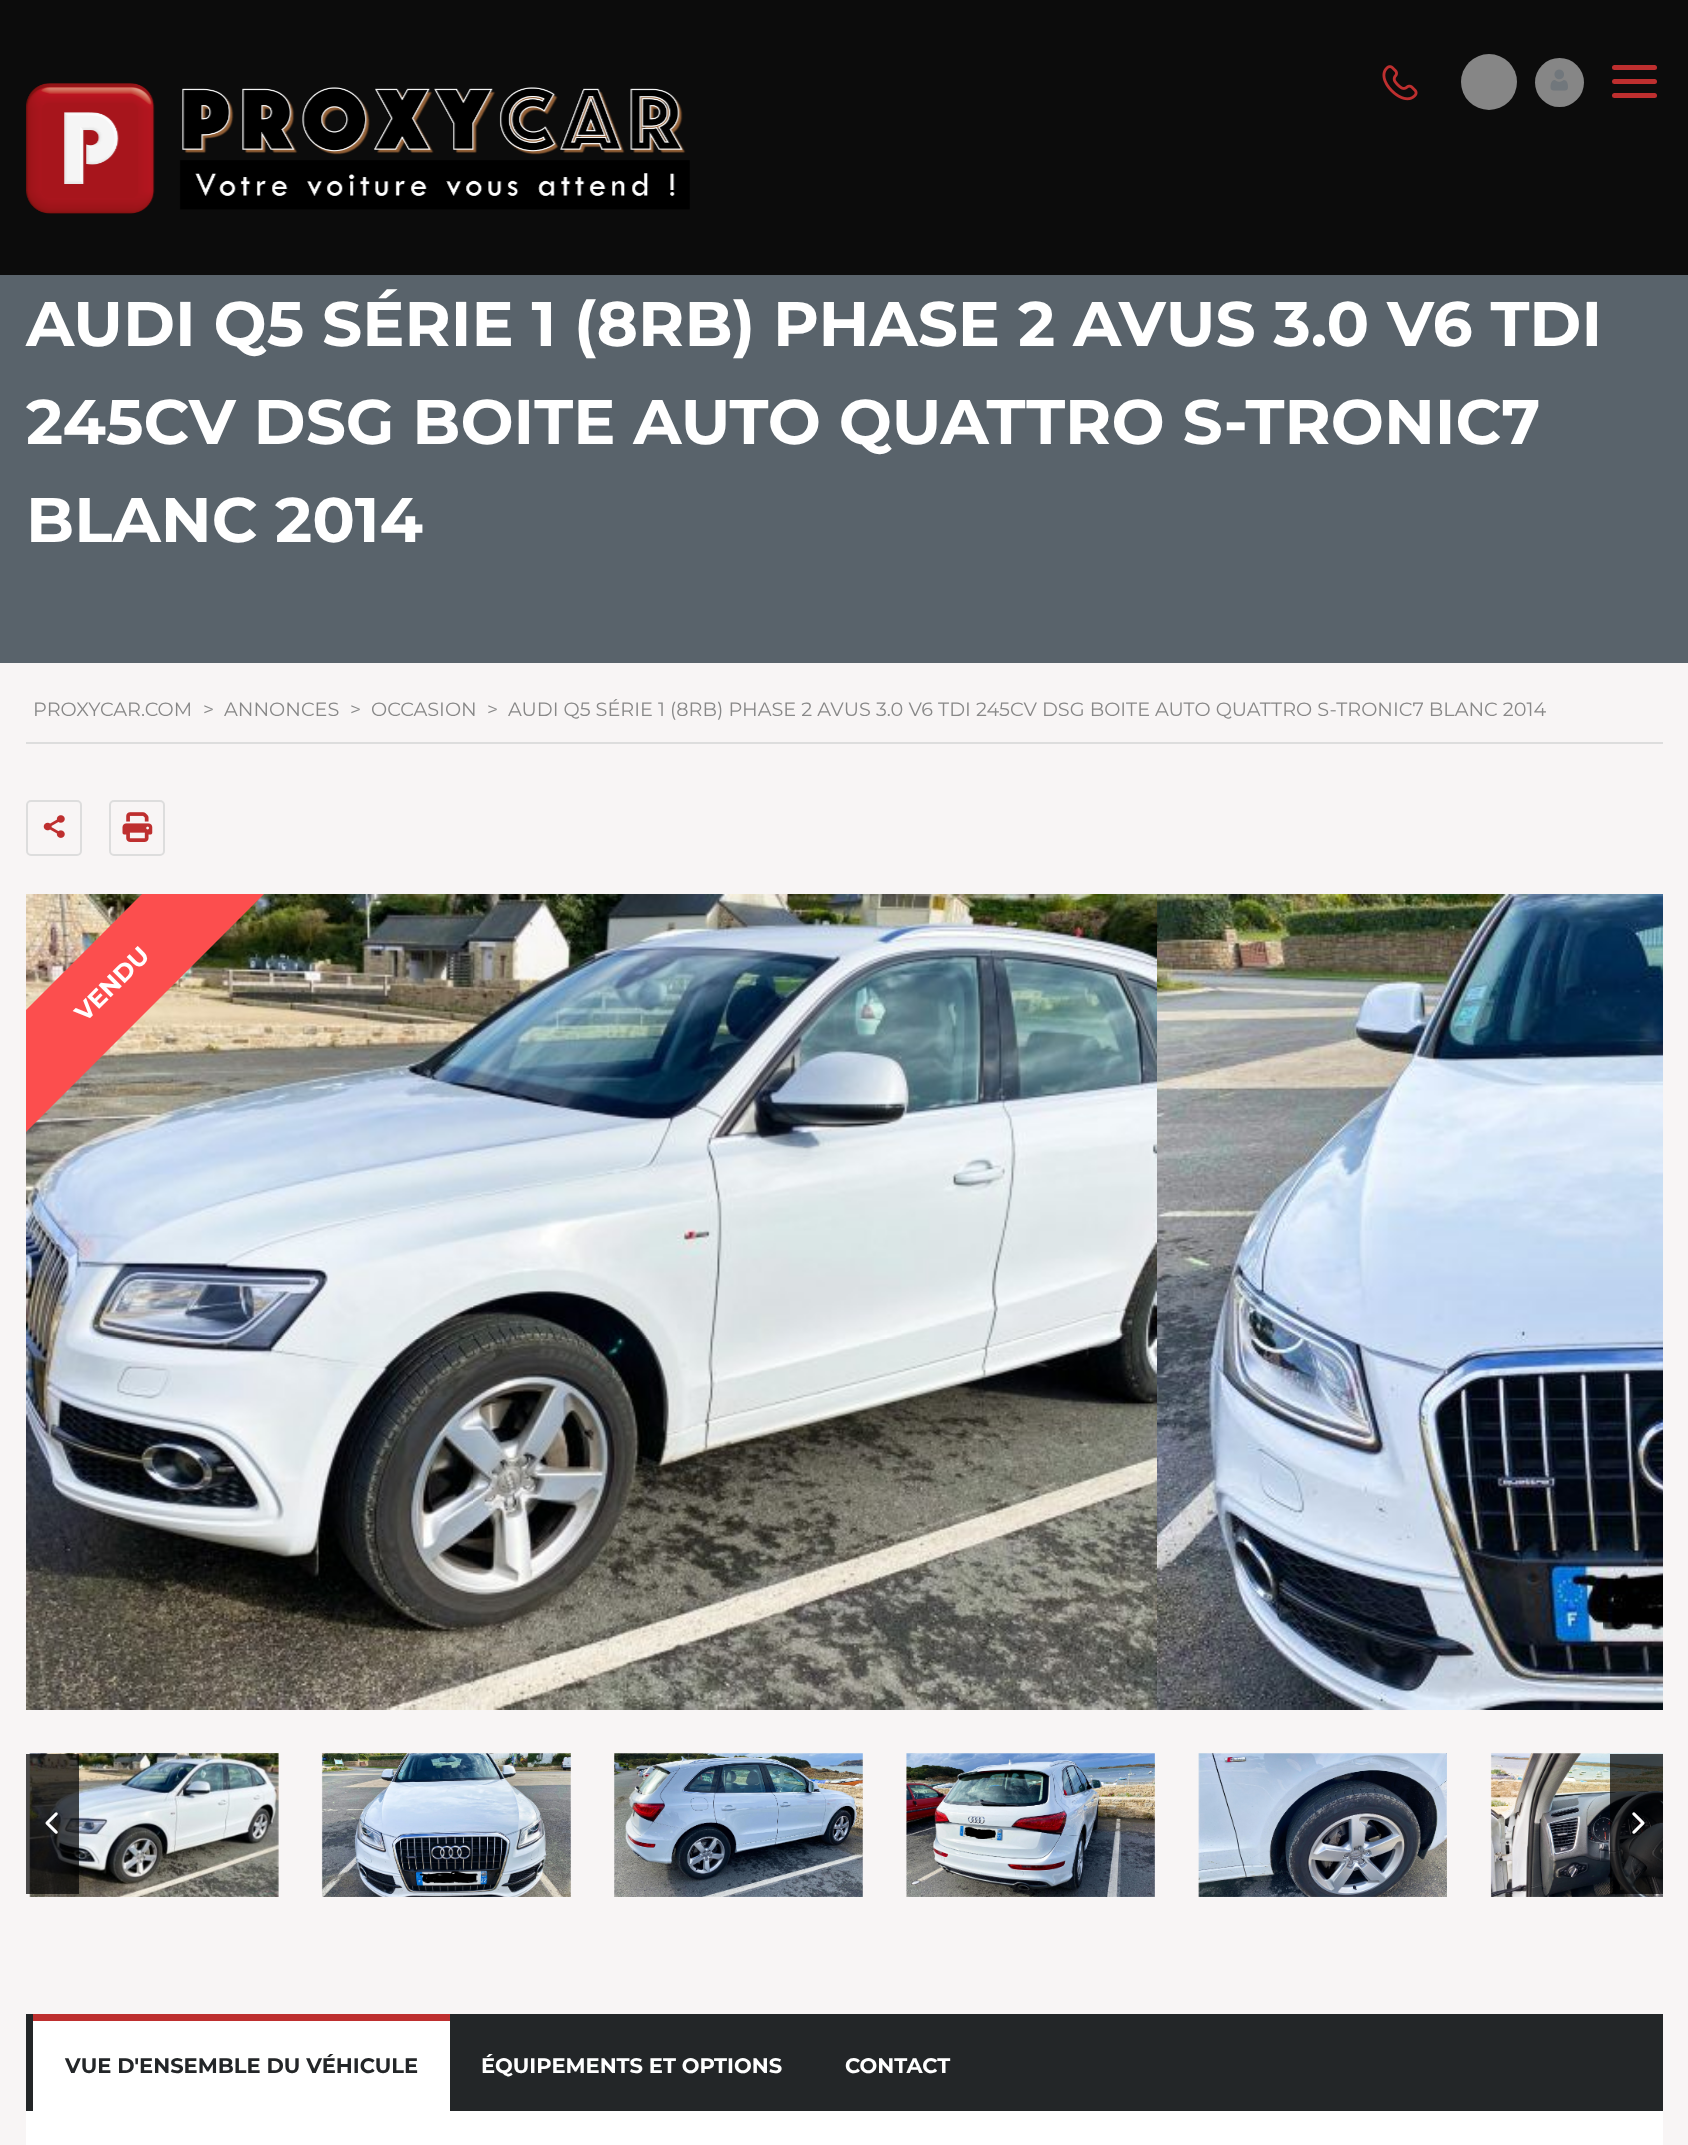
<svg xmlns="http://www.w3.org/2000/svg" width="1688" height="2145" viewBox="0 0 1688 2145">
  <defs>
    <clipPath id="clip1"><rect x="26" y="894" width="1637" height="1042"/></clipPath>
  </defs>
  <rect width="100%" height="100%" fill="rgb(248,245,245)"/>
  <rect x="0" y="0" width="1688" height="275" fill="rgb(12,12,12)"/>
  <image x="26" y="83" width="664" height="131" href="pic1.png"/>
  <image x="1382" y="65" width="36" height="36" href="pic2.png"/>
  <circle cx="1489" cy="82" r="28" fill="rgb(134,134,134)"/>
  <circle cx="1559.5" cy="82.5" r="24.5" fill="rgb(134,134,134)"/>
  <image x="1550" y="69" width="18" height="22" href="pic3.png"/>
  <rect x="1612" y="65" width="45" height="5" rx="2.5" fill="rgb(190,47,47)"/>
  <rect x="1612" y="79" width="45" height="5" rx="2.5" fill="rgb(190,47,47)"/>
  <rect x="1612" y="93" width="45" height="5" rx="2.5" fill="rgb(190,47,47)"/>
  <rect x="0" y="275" width="1688" height="388" fill="rgb(89,99,107)"/>
  <g font-family="Montserrat" font-size="63" font-weight="bold" fill="rgb(255,255,255)">
    <text>
      <tspan x="26" y="346">AUDI Q5 SÉRIE 1 (8RB) PHASE 2 AVUS 3.0 V6 TDI</tspan>
      <tspan x="26" y="444">245CV DSG BOITE AUTO QUATTRO S-TRONIC7</tspan>
      <tspan x="26" y="542">BLANC 2014</tspan>
    </text>
  </g>
  <rect x="26" y="742" width="1637" height="2" fill="rgb(221,221,221)"/>
  <g font-family="Montserrat" font-size="19.25" fill="rgb(136,136,136)">
    <text x="33" y="716">PROXYCAR.COM</text>
    <text x="203" y="716">&gt;</text>
    <text x="224" y="716">ANNONCES</text>
    <text x="350" y="716">&gt;</text>
    <text x="371" y="716">OCCASION</text>
    <text x="487" y="716">&gt;</text>
    <text x="508" y="716">AUDI Q5 SÉRIE 1 (8RB) PHASE 2 AVUS 3.0 V6 TDI 245CV DSG BOITE AUTO QUATTRO S-TRONIC7 BLANC 2014</text>
  </g>
  <rect x="27" y="801" width="54" height="54" rx="4" fill="none" stroke="rgb(221,221,221)" stroke-width="2"/>
  <image x="43" y="815" width="22" height="23" href="pic4.png"/>
  <rect x="110" y="801" width="54" height="54" rx="4" fill="none" stroke="rgb(221,221,221)" stroke-width="2"/>
  <image x="122" y="812" width="31" height="30" href="pic5.png"/>
  <image x="26" y="894" width="1131" height="816" href="pic6.png"/>
  <image x="1157" y="894" width="506" height="816" href="pic7.png"/>
  <g clip-path="url(#clip1)">
    <path d="M-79 1115L244 792L305 853L-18 1176Z" fill="rgb(252,78,78)"/>
  </g>
  <text x="85" y="1023" transform="rotate(-45 85 1023)" font-family="Montserrat" font-size="24.5" font-weight="bold" fill="rgb(255,255,255)">VENDU</text>
  <image x="29" y="1753" width="250" height="144" href="pic8.png"/>
  <image x="321" y="1753" width="250" height="144" href="pic9.png"/>
  <image x="614" y="1753" width="249" height="144" href="pic10.png"/>
  <image x="906" y="1753" width="249" height="144" href="pic11.png"/>
  <image x="1198" y="1753" width="249" height="144" href="pic12.png"/>
  <image x="1490" y="1753" width="173" height="144" href="pic13.png"/>
  <rect x="26" y="1754" width="53" height="140" fill="rgba(0,0,0,0.7)"/>
  <image x="45" y="1812" width="13" height="22" href="pic14.png"/>
  <rect x="1610" y="1754" width="53" height="140" fill="rgba(0,0,0,0.7)"/>
  <image x="1632" y="1812" width="13" height="22" href="pic15.png"/>
  <rect x="26" y="2111" width="1637" height="34" fill="rgb(255,255,255)"/>
  <rect x="26" y="2014" width="1637" height="97" fill="rgb(35,38,40)"/>
  <rect x="33" y="2021" width="417" height="90" fill="rgb(255,255,255)"/>
  <rect x="33" y="2014" width="417" height="7" fill="rgb(190,47,47)"/>
  <text x="65" y="2073" font-family="Montserrat" font-size="21" font-weight="bold" fill="rgb(35,38,40)">VUE D'ENSEMBLE DU VÉHICULE</text>
  <g font-family="Montserrat" font-size="21" font-weight="bold" fill="rgb(255,255,255)">
    <text x="481" y="2073">ÉQUIPEMENTS ET OPTIONS</text>
    <text x="845" y="2073">CONTACT</text>
  </g>
</svg>
